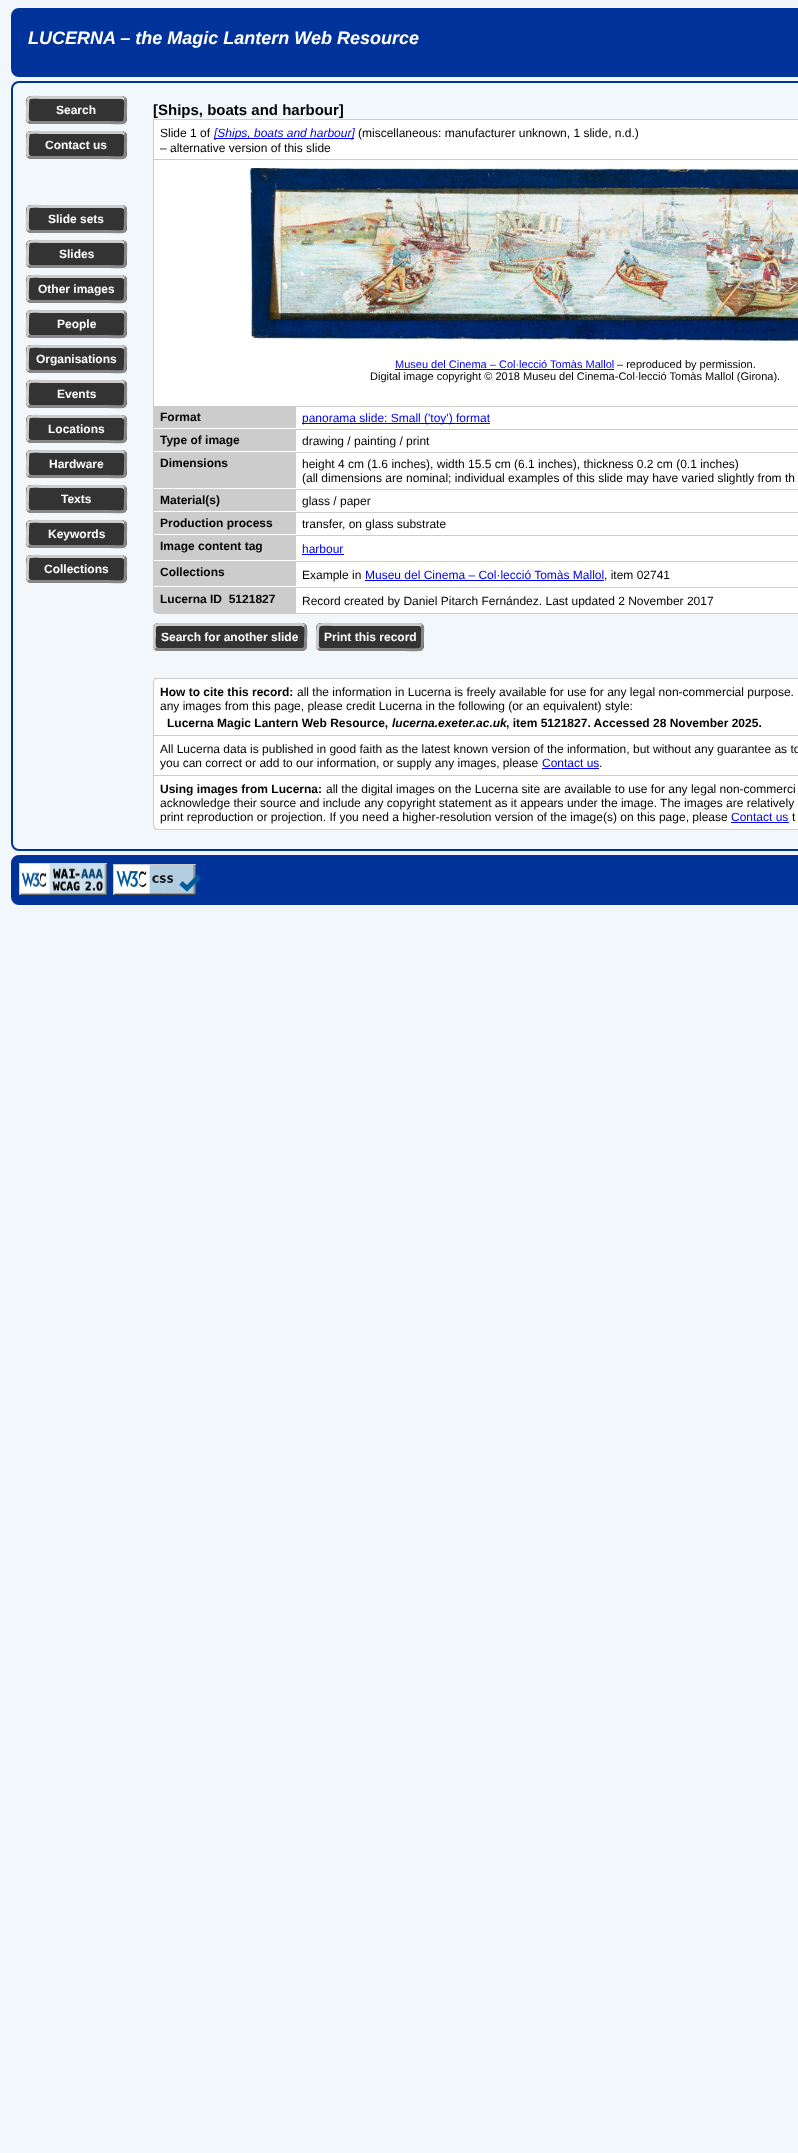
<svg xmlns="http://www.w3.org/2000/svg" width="798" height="2153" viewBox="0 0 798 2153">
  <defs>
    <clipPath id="clip1"><rect x="153" y="614" width="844" height="50"/></clipPath>
  </defs>
  <rect width="100%" height="100%" fill="rgb(241,247,251)"/>
  <rect x="12" y="9" width="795" height="67" rx="7" fill="rgb(0,51,153)" stroke="rgb(0,51,153)" stroke-width="2"/>
  <text x="28" y="44" font-family="Liberation Sans" font-size="18" font-weight="bold" font-style="italic" fill="rgb(255,255,255)">LUCERNA – the Magic Lantern Web Resource</text>
  <rect x="12" y="82" width="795" height="768" rx="7" fill="none" stroke="rgb(0,51,153)" stroke-width="2"/>
  <rect x="26" y="96" width="101" height="28" rx="5" fill="rgb(51,51,51)"/>
  <path d="M124.5 98.5C126.5 100.5 125.5 107.5 125.5 110C125.5 126.5 126 122.5 107 122.5H31L28.5 121.5" fill="none" stroke="rgb(136,136,136)" stroke-width="3"/>
  <path d="M28.5 121.5C26.5 119.5 27.5 112.5 27.5 110C27.5 93.5 27 97.5 46 97.5H122L124.5 98.5" fill="none" stroke="rgb(204,204,204)" stroke-width="3"/>
  <text x="56" y="114" font-family="Liberation Sans" font-size="12" font-weight="bold" fill="rgb(255,255,255)">Search</text>
  <rect x="26" y="131" width="101" height="28" rx="5" fill="rgb(51,51,51)"/>
  <path d="M124.5 133.5C126.5 135.5 125.5 142.5 125.5 145C125.5 161.5 126 157.5 107 157.5H31L28.5 156.5" fill="none" stroke="rgb(136,136,136)" stroke-width="3"/>
  <path d="M28.5 156.5C26.5 154.5 27.5 147.5 27.5 145C27.5 128.5 27 132.5 46 132.5H122L124.5 133.5" fill="none" stroke="rgb(204,204,204)" stroke-width="3"/>
  <text x="45" y="149" font-family="Liberation Sans" font-size="12" font-weight="bold" fill="rgb(255,255,255)">Contact us</text>
  <rect x="26" y="205" width="101" height="28" rx="5" fill="rgb(51,51,51)"/>
  <path d="M124.5 207.5C126.5 209.5 125.5 216.5 125.5 219C125.5 235.5 126 231.5 107 231.5H31L28.5 230.5" fill="none" stroke="rgb(136,136,136)" stroke-width="3"/>
  <path d="M28.5 230.5C26.5 228.5 27.5 221.5 27.5 219C27.5 202.5 27 206.5 46 206.5H122L124.5 207.5" fill="none" stroke="rgb(204,204,204)" stroke-width="3"/>
  <text x="48" y="223" font-family="Liberation Sans" font-size="12" font-weight="bold" fill="rgb(255,255,255)">Slide sets</text>
  <rect x="26" y="240" width="101" height="28" rx="5" fill="rgb(51,51,51)"/>
  <path d="M124.5 242.5C126.5 244.5 125.5 251.5 125.5 254C125.5 270.5 126 266.5 107 266.5H31L28.5 265.5" fill="none" stroke="rgb(136,136,136)" stroke-width="3"/>
  <path d="M28.5 265.5C26.5 263.5 27.5 256.5 27.5 254C27.5 237.5 27 241.5 46 241.5H122L124.5 242.5" fill="none" stroke="rgb(204,204,204)" stroke-width="3"/>
  <text x="59" y="258" font-family="Liberation Sans" font-size="12" font-weight="bold" fill="rgb(255,255,255)">Slides</text>
  <rect x="26" y="275" width="101" height="28" rx="5" fill="rgb(51,51,51)"/>
  <path d="M124.5 277.5C126.5 279.5 125.5 286.5 125.5 289C125.5 305.5 126 301.5 107 301.5H31L28.5 300.5" fill="none" stroke="rgb(136,136,136)" stroke-width="3"/>
  <path d="M28.5 300.5C26.5 298.5 27.5 291.5 27.5 289C27.5 272.5 27 276.5 46 276.5H122L124.5 277.5" fill="none" stroke="rgb(204,204,204)" stroke-width="3"/>
  <text x="38" y="293" font-family="Liberation Sans" font-size="12" font-weight="bold" fill="rgb(255,255,255)">Other images</text>
  <rect x="26" y="310" width="101" height="28" rx="5" fill="rgb(51,51,51)"/>
  <path d="M124.5 312.5C126.5 314.5 125.5 321.5 125.5 324C125.5 340.5 126 336.5 107 336.5H31L28.5 335.5" fill="none" stroke="rgb(136,136,136)" stroke-width="3"/>
  <path d="M28.5 335.5C26.5 333.5 27.5 326.5 27.5 324C27.5 307.5 27 311.5 46 311.5H122L124.5 312.5" fill="none" stroke="rgb(204,204,204)" stroke-width="3"/>
  <text x="57" y="328" font-family="Liberation Sans" font-size="12" font-weight="bold" fill="rgb(255,255,255)">People</text>
  <rect x="26" y="345" width="101" height="28" rx="5" fill="rgb(51,51,51)"/>
  <path d="M124.5 347.5C126.5 349.5 125.5 356.5 125.5 359C125.5 375.5 126 371.5 107 371.5H31L28.5 370.5" fill="none" stroke="rgb(136,136,136)" stroke-width="3"/>
  <path d="M28.5 370.5C26.5 368.5 27.5 361.5 27.5 359C27.5 342.5 27 346.5 46 346.5H122L124.5 347.5" fill="none" stroke="rgb(204,204,204)" stroke-width="3"/>
  <text x="36" y="363" font-family="Liberation Sans" font-size="12" font-weight="bold" fill="rgb(255,255,255)">Organisations</text>
  <rect x="26" y="380" width="101" height="28" rx="5" fill="rgb(51,51,51)"/>
  <path d="M124.5 382.5C126.5 384.5 125.5 391.5 125.5 394C125.5 410.5 126 406.5 107 406.5H31L28.5 405.5" fill="none" stroke="rgb(136,136,136)" stroke-width="3"/>
  <path d="M28.5 405.5C26.5 403.5 27.5 396.5 27.5 394C27.5 377.5 27 381.5 46 381.5H122L124.5 382.5" fill="none" stroke="rgb(204,204,204)" stroke-width="3"/>
  <text x="57" y="398" font-family="Liberation Sans" font-size="12" font-weight="bold" fill="rgb(255,255,255)">Events</text>
  <rect x="26" y="415" width="101" height="28" rx="5" fill="rgb(51,51,51)"/>
  <path d="M124.5 417.5C126.5 419.5 125.5 426.5 125.5 429C125.5 445.5 126 441.5 107 441.5H31L28.5 440.5" fill="none" stroke="rgb(136,136,136)" stroke-width="3"/>
  <path d="M28.5 440.5C26.5 438.5 27.5 431.5 27.5 429C27.5 412.5 27 416.5 46 416.5H122L124.5 417.5" fill="none" stroke="rgb(204,204,204)" stroke-width="3"/>
  <text x="48" y="433" font-family="Liberation Sans" font-size="12" font-weight="bold" fill="rgb(255,255,255)">Locations</text>
  <rect x="26" y="450" width="101" height="28" rx="5" fill="rgb(51,51,51)"/>
  <path d="M124.5 452.5C126.5 454.5 125.5 461.5 125.5 464C125.5 480.5 126 476.5 107 476.5H31L28.5 475.5" fill="none" stroke="rgb(136,136,136)" stroke-width="3"/>
  <path d="M28.5 475.5C26.5 473.5 27.5 466.5 27.5 464C27.5 447.5 27 451.5 46 451.5H122L124.5 452.5" fill="none" stroke="rgb(204,204,204)" stroke-width="3"/>
  <text x="49" y="468" font-family="Liberation Sans" font-size="12" font-weight="bold" fill="rgb(255,255,255)">Hardware</text>
  <rect x="26" y="485" width="101" height="28" rx="5" fill="rgb(51,51,51)"/>
  <path d="M124.5 487.5C126.5 489.5 125.5 496.5 125.5 499C125.5 515.5 126 511.5 107 511.5H31L28.5 510.5" fill="none" stroke="rgb(136,136,136)" stroke-width="3"/>
  <path d="M28.5 510.5C26.5 508.5 27.5 501.5 27.5 499C27.5 482.5 27 486.5 46 486.5H122L124.5 487.5" fill="none" stroke="rgb(204,204,204)" stroke-width="3"/>
  <text x="61" y="503" font-family="Liberation Sans" font-size="12" font-weight="bold" fill="rgb(255,255,255)">Texts</text>
  <rect x="26" y="520" width="101" height="28" rx="5" fill="rgb(51,51,51)"/>
  <path d="M124.5 522.5C126.5 524.5 125.5 531.5 125.5 534C125.5 550.5 126 546.5 107 546.5H31L28.5 545.5" fill="none" stroke="rgb(136,136,136)" stroke-width="3"/>
  <path d="M28.5 545.5C26.5 543.5 27.5 536.5 27.5 534C27.5 517.5 27 521.5 46 521.5H122L124.5 522.5" fill="none" stroke="rgb(204,204,204)" stroke-width="3"/>
  <text x="48" y="538" font-family="Liberation Sans" font-size="12" font-weight="bold" fill="rgb(255,255,255)">Keywords</text>
  <rect x="26" y="555" width="101" height="28" rx="5" fill="rgb(51,51,51)"/>
  <path d="M124.5 557.5C126.5 559.5 125.5 566.5 125.5 569C125.5 585.5 126 581.5 107 581.5H31L28.5 580.5" fill="none" stroke="rgb(136,136,136)" stroke-width="3"/>
  <path d="M28.5 580.5C26.5 578.5 27.5 571.5 27.5 569C27.5 552.5 27 556.5 46 556.5H122L124.5 557.5" fill="none" stroke="rgb(204,204,204)" stroke-width="3"/>
  <text x="44" y="573" font-family="Liberation Sans" font-size="12" font-weight="bold" fill="rgb(255,255,255)">Collections</text>
  <text x="153" y="115" font-family="Liberation Sans" font-size="15" font-weight="bold" fill="rgb(0,0,0)">[Ships, boats and harbour]</text>
  <rect x="154" y="120" width="644" height="39" fill="rgb(255,255,255)"/>
  <path d="M153 119H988C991 119 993 121 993 124V159H153ZM154 120H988C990 120 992 122 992 124V159H154Z" fill="rgb(204,204,204)" fill-rule="evenodd"/>
  <text x="160" y="137" font-family="Liberation Sans" font-size="12" fill="rgb(0,0,0)">Slide 1 of</text>
  <rect x="214" y="138" width="140" height="1" fill="rgb(0,0,238)"/>
  <text x="214" y="137" font-family="Liberation Sans" font-size="12" font-style="italic" fill="rgb(0,0,238)">[Ships, boats and harbour]</text>
  <g font-family="Liberation Sans" font-size="12" fill="rgb(0,0,0)">
    <text x="358" y="137">(miscellaneous: manufacturer unknown, 1 slide, n.d.)</text>
    <text x="160" y="152">– alternative version of this slide</text>
  </g>
  <rect x="154" y="160" width="644" height="246" fill="rgb(255,255,255)"/>
  <rect x="153" y="159" width="645" height="1" fill="rgb(204,204,204)"/>
  <rect x="153" y="159" width="1" height="428" fill="rgb(204,204,204)"/>
  <image x="250" y="168" width="548" height="173" href="pic1.png"/>
  <text x="395" y="368" font-family="Liberation Sans" font-size="11" fill="rgb(0,0,238)">Museu del Cinema – Col·lecció Tomàs Mallol</text>
  <rect x="395" y="369" width="219" height="1" fill="rgb(0,0,238)"/>
  <g font-family="Liberation Sans" font-size="11" fill="rgb(0,0,0)">
    <text x="617" y="368">– reproduced by permission.</text>
    <text x="370" y="380">Digital image copyright © 2018 Museu del Cinema-Col·lecció Tomàs Mallol (Girona).</text>
  </g>
  <rect x="296" y="407" width="502" height="180" fill="rgb(255,255,255)"/>
  <rect x="154" y="406" width="142" height="22" fill="rgb(204,204,204)"/>
  <rect x="154" y="428" width="142" height="1" fill="rgb(255,255,255)"/>
  <text x="160" y="421" font-family="Liberation Sans" font-size="12" font-weight="bold" fill="rgb(0,0,0)">Format</text>
  <rect x="296" y="406" width="502" height="1" fill="rgb(204,204,204)"/>
  <rect x="302" y="423" width="188" height="1" fill="rgb(0,0,238)"/>
  <text x="302" y="422" font-family="Liberation Sans" font-size="12" fill="rgb(0,0,238)">panorama slide: Small ('toy') format</text>
  <rect x="154" y="429" width="142" height="22" fill="rgb(204,204,204)"/>
  <rect x="154" y="451" width="142" height="1" fill="rgb(255,255,255)"/>
  <text x="160" y="444" font-family="Liberation Sans" font-size="12" font-weight="bold" fill="rgb(0,0,0)">Type of image</text>
  <rect x="296" y="429" width="502" height="1" fill="rgb(204,204,204)"/>
  <text x="302" y="445" font-family="Liberation Sans" font-size="12" fill="rgb(0,0,0)">drawing / painting / print</text>
  <rect x="154" y="452" width="142" height="36" fill="rgb(204,204,204)"/>
  <rect x="154" y="488" width="142" height="1" fill="rgb(255,255,255)"/>
  <text x="160" y="467" font-family="Liberation Sans" font-size="12" font-weight="bold" fill="rgb(0,0,0)">Dimensions</text>
  <rect x="296" y="452" width="502" height="1" fill="rgb(204,204,204)"/>
  <g font-family="Liberation Sans" font-size="12" fill="rgb(0,0,0)">
    <text>
      <tspan x="302" y="468">height 4 cm (1.6 inches), width 15.5 cm (6.1 inches), thickness 0.2 cm (0.1 inches)</tspan>
      <tspan x="302" y="482">(all dimensions are nominal; individual examples of this slide may have varied slightly from th</tspan>
    </text>
  </g>
  <rect x="154" y="489" width="142" height="22" fill="rgb(204,204,204)"/>
  <rect x="154" y="511" width="142" height="1" fill="rgb(255,255,255)"/>
  <text x="160" y="504" font-family="Liberation Sans" font-size="12" font-weight="bold" fill="rgb(0,0,0)">Material(s)</text>
  <rect x="296" y="489" width="502" height="1" fill="rgb(204,204,204)"/>
  <text x="302" y="505" font-family="Liberation Sans" font-size="12" fill="rgb(0,0,0)">glass / paper</text>
  <rect x="154" y="512" width="142" height="22" fill="rgb(204,204,204)"/>
  <rect x="154" y="534" width="142" height="1" fill="rgb(255,255,255)"/>
  <text x="160" y="527" font-family="Liberation Sans" font-size="12" font-weight="bold" fill="rgb(0,0,0)">Production process</text>
  <rect x="296" y="512" width="502" height="1" fill="rgb(204,204,204)"/>
  <text x="302" y="528" font-family="Liberation Sans" font-size="12" fill="rgb(0,0,0)">transfer, on glass substrate</text>
  <rect x="154" y="535" width="142" height="25" fill="rgb(204,204,204)"/>
  <rect x="154" y="560" width="142" height="1" fill="rgb(255,255,255)"/>
  <text x="160" y="550" font-family="Liberation Sans" font-size="12" font-weight="bold" fill="rgb(0,0,0)">Image content tag</text>
  <rect x="296" y="535" width="502" height="1" fill="rgb(204,204,204)"/>
  <text x="302" y="553" font-family="Liberation Sans" font-size="12" fill="rgb(0,0,238)">harbour</text>
  <rect x="302" y="554" width="42" height="1" fill="rgb(0,0,238)"/>
  <rect x="154" y="561" width="142" height="25" fill="rgb(204,204,204)"/>
  <rect x="154" y="586" width="142" height="1" fill="rgb(255,255,255)"/>
  <text x="160" y="576" font-family="Liberation Sans" font-size="12" font-weight="bold" fill="rgb(0,0,0)">Collections</text>
  <rect x="296" y="561" width="502" height="1" fill="rgb(204,204,204)"/>
  <text x="302" y="579" font-family="Liberation Sans" font-size="12" fill="rgb(0,0,0)">Example in</text>
  <text x="365" y="579" font-family="Liberation Sans" font-size="12" fill="rgb(0,0,238)">Museu del Cinema – Col·lecció Tomàs Mallol</text>
  <rect x="365" y="580" width="239" height="1" fill="rgb(0,0,238)"/>
  <text x="604" y="579" font-family="Liberation Sans" font-size="12" fill="rgb(0,0,0)">, item 02741</text>
  <path d="M153.5 587.5H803.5V609C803.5 611.5 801.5 613.5 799 613.5H158C155.5 613.5 153.5 611.5 153.5 609Z" fill="rgb(255,255,255)" stroke="rgb(204,204,204)"/>
  <rect x="154" y="588" width="142" height="25" fill="rgb(204,204,204)"/>
  <text x="160" y="603" font-family="Liberation Sans" font-size="12" font-weight="bold" fill="rgb(0,0,0)" xml:space="preserve">Lucerna ID  5121827</text>
  <text x="302" y="605" font-family="Liberation Sans" font-size="12" fill="rgb(0,0,0)">Record created by Daniel Pitarch Fernández. Last updated 2 November 2017</text>
  <rect x="153" y="623" width="154" height="28" rx="5" fill="rgb(51,51,51)"/>
  <path d="M304.5 625.5C307 628 305.5 637 305.5 640C305.5 642.5 307 649.5 302 649.5H158L155.5 648.5" fill="none" stroke="rgb(136,136,136)" stroke-width="3"/>
  <g clip-path="url(#clip1)">
    <path d="M155.5 648.5C153 646 154.5 637 154.5 634C154.5 631.5 153 624.5 158 624.5H302L304.5 625.5" fill="none" stroke="rgb(204,204,204)" stroke-width="3"/>
  </g>
  <text x="161" y="641" font-family="Liberation Sans" font-size="12" font-weight="bold" fill="rgb(255,255,255)">Search for another slide</text>
  <rect x="316" y="623" width="108" height="28" rx="5" fill="rgb(51,51,51)"/>
  <path d="M421.5 625.5C423.5 627.5 422.5 631.5 422.5 634C422.5 653.5 424.5 649.5 402.5 649.5H320.5L318.5 648.5" fill="none" stroke="rgb(136,136,136)" stroke-width="3"/>
  <path d="M318.5 648.5C316.5 646.5 317.5 642.5 317.5 640C317.5 620.5 315.5 624.5 337.5 624.5H419.5L421.5 625.5" fill="none" stroke="rgb(204,204,204)" stroke-width="3"/>
  <text x="324" y="641" font-family="Liberation Sans" font-size="12" font-weight="bold" fill="rgb(255,255,255)">Print this record</text>
  <rect x="153" y="678" width="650" height="152" rx="5" fill="rgb(255,255,255)"/>
  <path d="M158 678H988C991 678 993 680 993 683V825C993 828 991 830 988 830H158C155 830 153 828 153 825V683C153 680 155 678 158 678ZM158 678H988C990 678 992 680 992 683V825C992 827 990 829 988 829H158C156 829 154 827 154 825V683C154 680 156 678 158 678Z" fill="rgb(204,204,204)" fill-rule="evenodd"/>
  <rect x="154" y="678" width="644" height="1" fill="rgb(204,204,204)"/>
  <text x="160" y="696" font-family="Liberation Sans" font-size="12" font-weight="bold" fill="rgb(0,0,0)">How to cite this record:</text>
  <g font-family="Liberation Sans" font-size="12" fill="rgb(0,0,0)">
    <text x="297" y="696">all the information in Lucerna is freely available for use for any legal non-commercial purpose.</text>
    <text x="160" y="710">any images from this page, please credit Lucerna in the following (or an equivalent) style:</text>
  </g>
  <text x="167" y="727" font-family="Liberation Sans" font-size="12" font-weight="bold" fill="rgb(0,0,0)">Lucerna Magic Lantern Web Resource,</text>
  <text x="392" y="727" font-family="Liberation Sans" font-size="12" font-weight="bold" font-style="italic" fill="rgb(0,0,0)">lucerna.exeter.ac.uk</text>
  <text x="506" y="727" font-family="Liberation Sans" font-size="12" font-weight="bold" fill="rgb(0,0,0)">, item 5121827. Accessed 28 November 2025.</text>
  <rect x="154" y="735" width="644" height="1" fill="rgb(204,204,204)"/>
  <g font-family="Liberation Sans" font-size="12" fill="rgb(0,0,0)">
    <text>
      <tspan x="160" y="753">All Lucerna data is published in good faith as the latest known version of the information, but without any guarantee as to</tspan>
      <tspan x="160" y="767">you can correct or add to our information, or supply any images, please</tspan>
    </text>
  </g>
  <text x="542" y="767" font-family="Liberation Sans" font-size="12" fill="rgb(0,0,238)">Contact us</text>
  <rect x="542" y="768" width="57" height="1" fill="rgb(0,0,238)"/>
  <text x="599" y="767" font-family="Liberation Sans" font-size="12" fill="rgb(0,0,0)">.</text>
  <rect x="154" y="775" width="644" height="1" fill="rgb(204,204,204)"/>
  <text x="160" y="793" font-family="Liberation Sans" font-size="12" font-weight="bold" fill="rgb(0,0,0)">Using images from Lucerna:</text>
  <g font-family="Liberation Sans" font-size="12" fill="rgb(0,0,0)">
    <text x="326" y="793">all the digital images on the Lucerna site are available to use for any legal non-commerci</text>
    <text>
      <tspan x="160" y="807">acknowledge their source and include any copyright statement as it appears under the image. The images are relatively</tspan>
      <tspan x="160" y="821">print reproduction or projection. If you need a higher-resolution version of the image(s) on this page, please</tspan>
    </text>
  </g>
  <text x="731" y="821" font-family="Liberation Sans" font-size="12" fill="rgb(0,0,238)">Contact us</text>
  <rect x="731" y="822" width="58" height="1" fill="rgb(0,0,238)"/>
  <text x="792" y="821" font-family="Liberation Sans" font-size="12" fill="rgb(0,0,0)">t</text>
  <rect x="12" y="856" width="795" height="48" rx="7" fill="rgb(0,51,153)" stroke="rgb(0,51,153)" stroke-width="2"/>
  <image x="19" y="863" width="88" height="32" href="pic2.png"/>
  <image x="113" y="864" width="88" height="31" href="pic3.png"/>
</svg>
